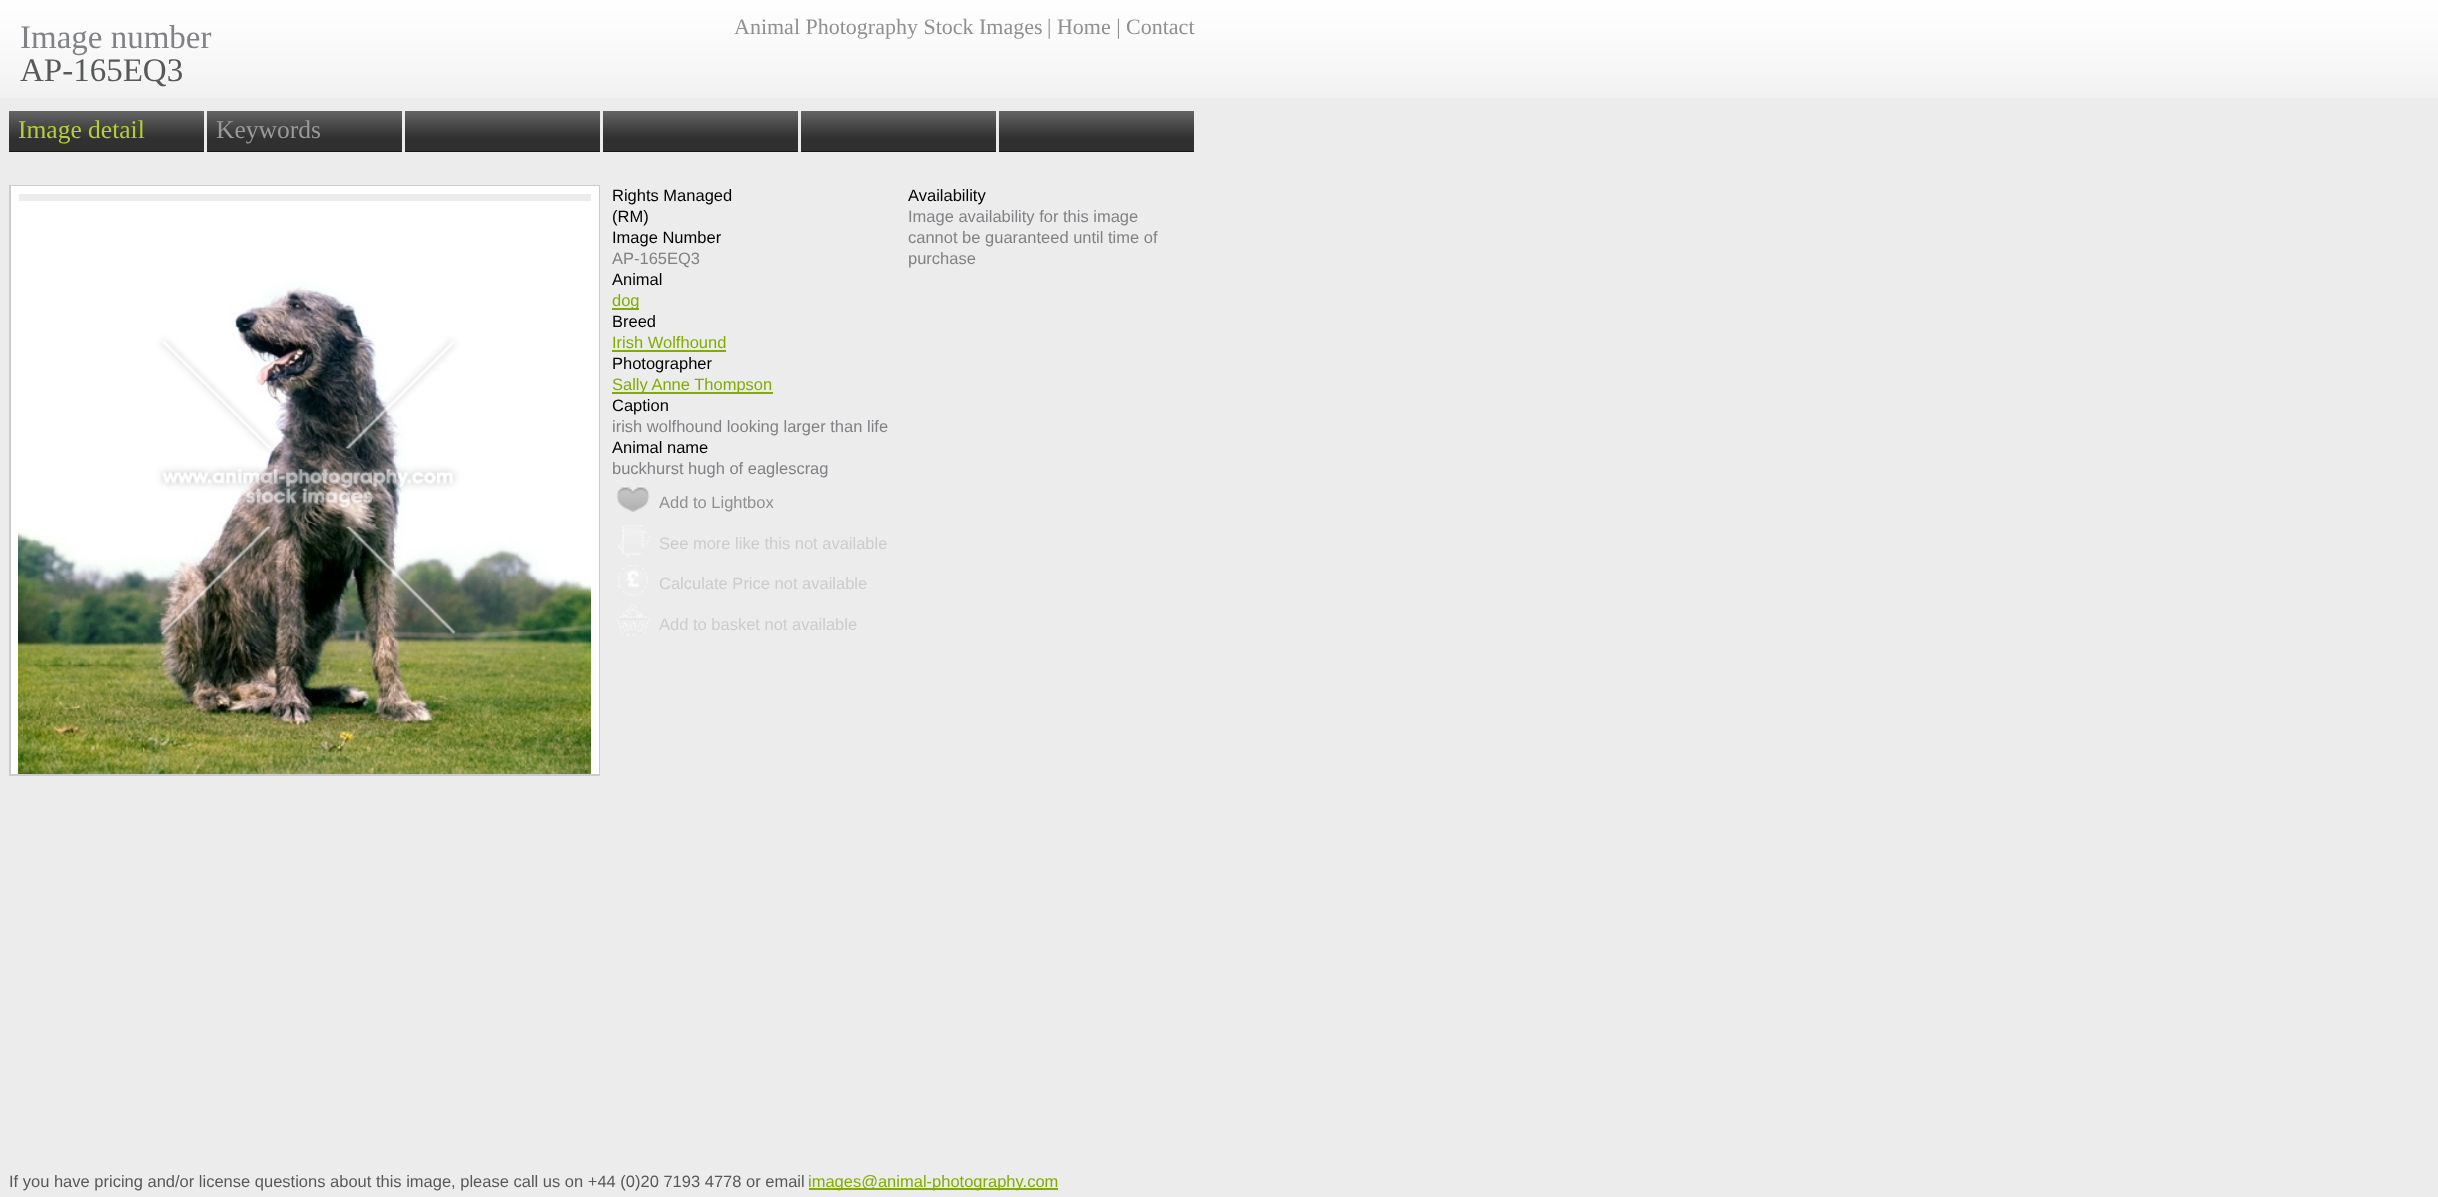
<svg xmlns="http://www.w3.org/2000/svg" width="2438" height="1197" viewBox="0 0 2438 1197">
  <defs>
    <clipPath id="clip1"><rect x="11" y="186" width="588" height="588"/></clipPath>
  </defs>
  <rect width="100%" height="100%" fill="rgb(236,236,236)"/>
  <image x="0" y="0" width="2438" height="98" href="pic1.png"/>
  <text x="20" y="48" font-family="Liberation Serif" font-size="33" fill="rgb(128,130,133)">Image number</text>
  <text x="20" y="81" font-family="Liberation Serif" font-size="33" fill="rgb(88,89,91)">AP-165EQ3</text>
  <g font-family="Liberation Serif" font-size="22" fill="rgb(143,144,143)">
    <text x="734" y="34">Animal Photography Stock Images</text>
    <text x="1047" y="34">| Home | Contact</text>
  </g>
  <rect x="9" y="151" width="195" height="1" fill="rgb(0,0,0)"/>
  <image x="9" y="111" width="195" height="41" href="pic2.png"/>
  <text x="18" y="138" font-family="Liberation Serif" font-size="25.5" fill="rgb(181,207,53)">Image detail</text>
  <rect x="207" y="151" width="195" height="1" fill="rgb(0,0,0)"/>
  <image x="207" y="111" width="195" height="41" href="pic2.png"/>
  <text x="216" y="138" font-family="Liberation Serif" font-size="25.5" fill="rgb(153,153,153)">Keywords</text>
  <rect x="405" y="151" width="195" height="1" fill="rgb(0,0,0)"/>
  <image x="405" y="111" width="195" height="41" href="pic2.png"/>
  <rect x="603" y="151" width="195" height="1" fill="rgb(0,0,0)"/>
  <image x="603" y="111" width="195" height="41" href="pic2.png"/>
  <rect x="801" y="151" width="195" height="1" fill="rgb(0,0,0)"/>
  <image x="801" y="111" width="195" height="41" href="pic2.png"/>
  <rect x="999" y="151" width="195" height="1" fill="rgb(0,0,0)"/>
  <image x="999" y="111" width="195" height="41" href="pic2.png"/>
  <rect x="10" y="186" width="589" height="589" fill="none" stroke="rgb(204,204,204)" stroke-width="2"/>
  <g clip-path="url(#clip1)">
    <rect x="15" y="190" width="580" height="595" fill="none" stroke="rgb(255,255,255)" stroke-width="8"/>
  </g>
  <image x="18" y="201" width="573" height="573" href="pic3.png"/>
  <g font-family="Liberation Sans" font-size="16.5" fill="rgb(0,0,0)">
    <text>
      <tspan x="612" y="201">Rights Managed</tspan>
      <tspan x="612" y="222">(RM)</tspan>
      <tspan x="612" y="243">Image Number</tspan>
    </text>
  </g>
  <text x="612" y="264" font-family="Liberation Sans" font-size="16.5" fill="rgb(128,130,133)">AP-165EQ3</text>
  <text x="612" y="285" font-family="Liberation Sans" font-size="16.5" fill="rgb(0,0,0)">Animal</text>
  <rect x="612" y="308" width="27" height="2" fill="rgb(130,172,0)"/>
  <text x="612" y="306" font-family="Liberation Sans" font-size="16.5" fill="rgb(130,172,0)">dog</text>
  <text x="612" y="327" font-family="Liberation Sans" font-size="16.5" fill="rgb(0,0,0)">Breed</text>
  <text x="612" y="348" font-family="Liberation Sans" font-size="16.5" fill="rgb(130,172,0)">Irish Wolfhound</text>
  <rect x="612" y="350" width="114" height="2" fill="rgb(130,172,0)"/>
  <text x="612" y="369" font-family="Liberation Sans" font-size="16.5" fill="rgb(0,0,0)">Photographer</text>
  <rect x="612" y="392" width="161" height="2" fill="rgb(130,172,0)"/>
  <text x="612" y="390" font-family="Liberation Sans" font-size="16.5" fill="rgb(130,172,0)">Sally Anne Thompson</text>
  <text x="612" y="411" font-family="Liberation Sans" font-size="16.5" fill="rgb(0,0,0)">Caption</text>
  <text x="612" y="432" font-family="Liberation Sans" font-size="16.5" fill="rgb(128,130,133)">irish wolfhound looking larger than life</text>
  <text x="612" y="453" font-family="Liberation Sans" font-size="16.5" fill="rgb(0,0,0)">Animal name</text>
  <text x="612" y="474" font-family="Liberation Sans" font-size="16.5" fill="rgb(128,130,133)">buckhurst hugh of eaglescrag</text>
  <text x="908" y="201" font-family="Liberation Sans" font-size="16.5" fill="rgb(0,0,0)">Availability</text>
  <g font-family="Liberation Sans" font-size="16.5" fill="rgb(128,130,133)">
    <text>
      <tspan x="908" y="222">Image availability for this image</tspan>
      <tspan x="908" y="243">cannot be guaranteed until time of</tspan>
      <tspan x="908" y="264">purchase</tspan>
    </text>
  </g>
  <image x="616" y="486" width="34" height="26" href="pic4.png"/>
  <text x="659" y="508" font-family="Liberation Sans" font-size="16.5" fill="rgb(143,144,143)">Add to Lightbox</text>
  <image x="618" y="525" width="33" height="33" href="pic5.png"/>
  <text x="659" y="549" font-family="Liberation Sans" font-size="16.5" fill="rgb(204,204,204)">See more like this not available</text>
  <image x="618" y="565" width="30" height="31" href="pic6.png"/>
  <text x="659" y="589" font-family="Liberation Sans" font-size="16.5" fill="rgb(204,204,204)">Calculate Price not available</text>
  <image x="617" y="604" width="33" height="32" href="pic7.png"/>
  <text x="659" y="630" font-family="Liberation Sans" font-size="16.5" fill="rgb(204,204,204)">Add to basket not available</text>
  <text x="9" y="1187" font-family="Liberation Sans" font-size="16.5" fill="rgb(88,89,91)">If you have pricing and/or license questions about this image, please call us on +44 (0)20 7193 4778 or email</text>
  <rect x="809" y="1188" width="249" height="2" fill="rgb(130,172,0)"/>
  <text x="808" y="1187" font-family="Liberation Sans" font-size="16.5" fill="rgb(130,172,0)">images@animal-photography.com</text>
</svg>
